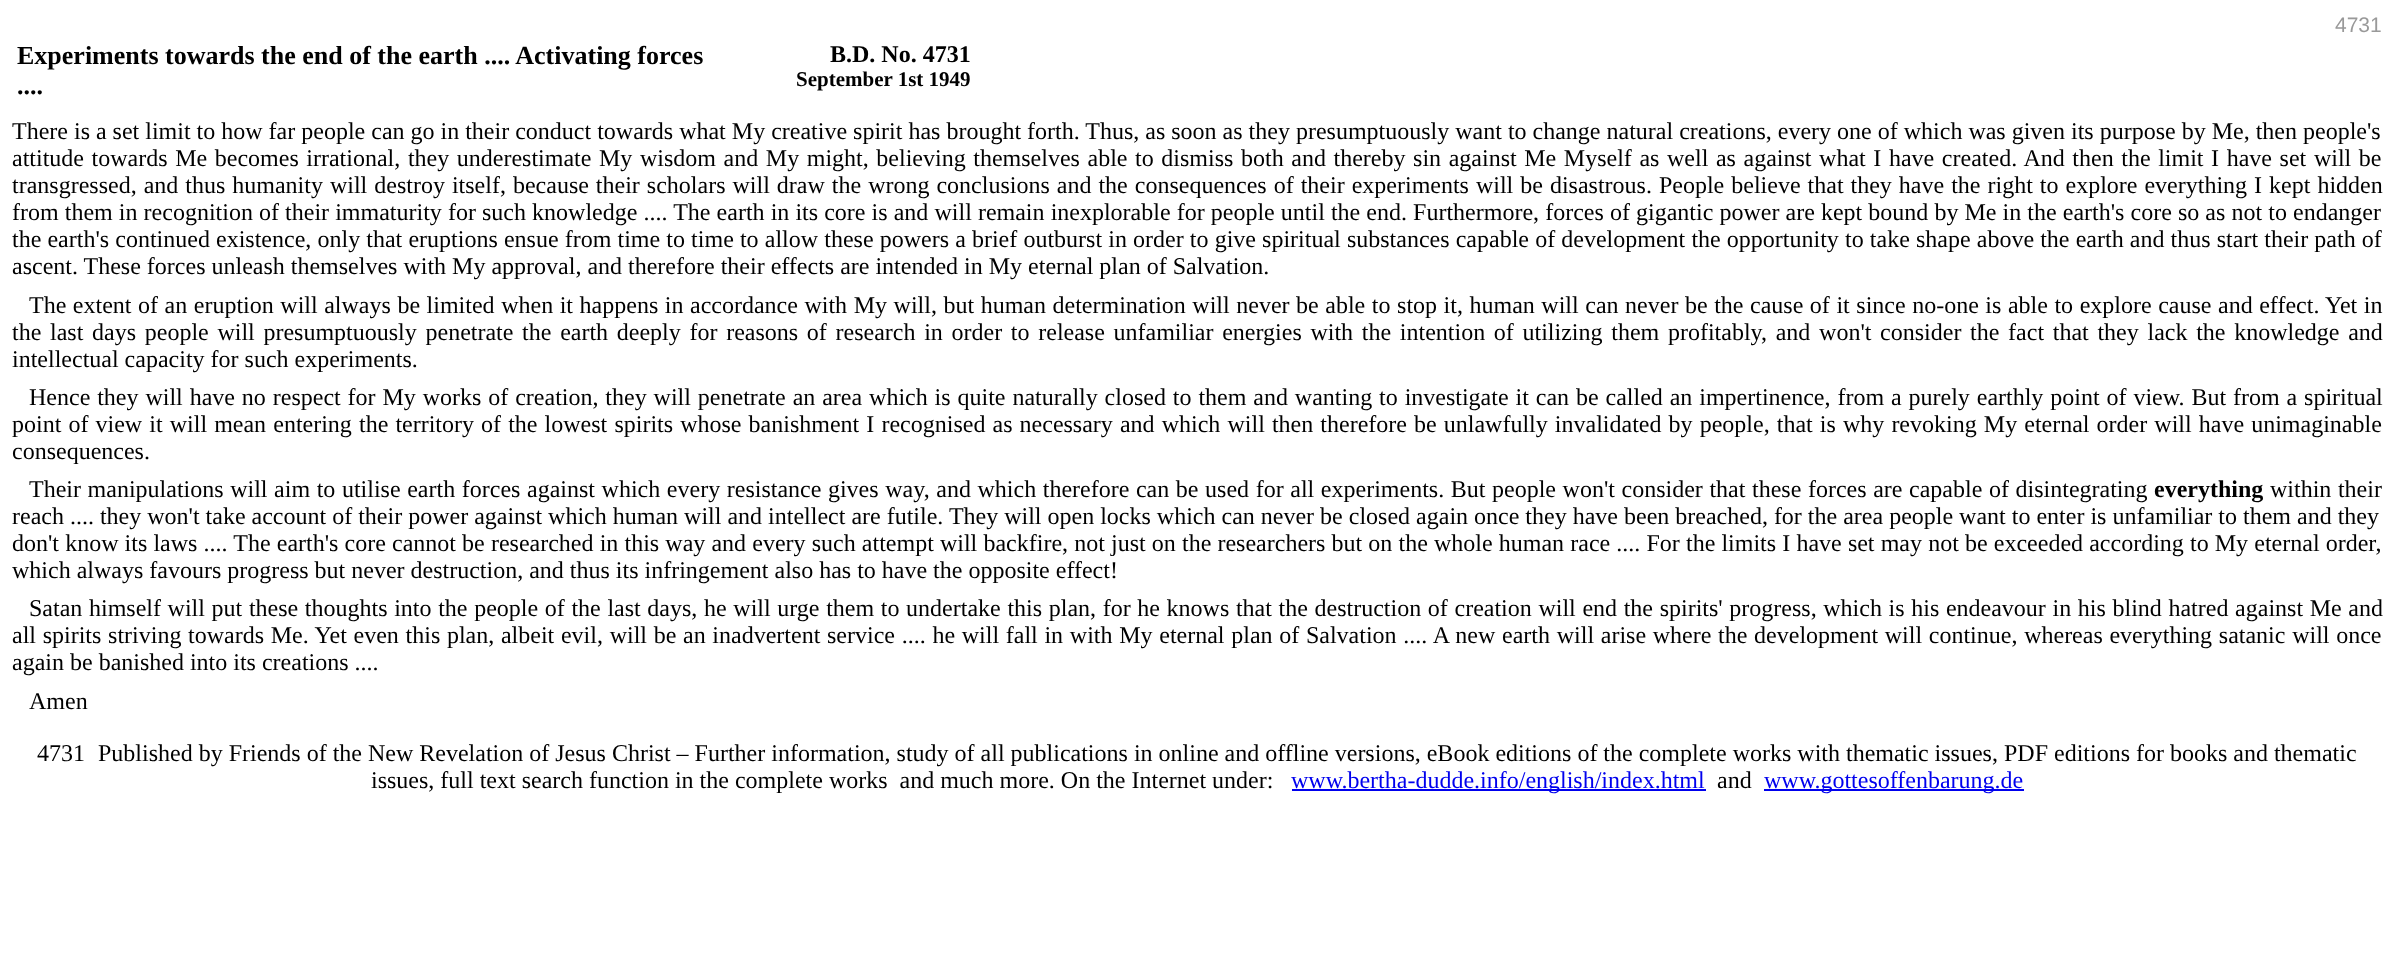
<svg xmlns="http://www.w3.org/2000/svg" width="2393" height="957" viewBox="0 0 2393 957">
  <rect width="100%" height="100%" fill="rgb(255,255,255)"/>
  <text x="2335" y="32" font-family="Liberation Sans" font-size="21" fill="rgb(153,153,153)">4731</text>
  <g font-family="Liberation Serif" font-size="26" font-weight="bold" fill="rgb(0,0,0)">
    <text>
      <tspan x="17" y="64">Experiments towards the end of the earth .... Activating forces</tspan>
      <tspan x="17" y="94">....</tspan>
    </text>
  </g>
  <text x="830" y="62" font-family="Liberation Serif" font-size="24" font-weight="bold" fill="rgb(0,0,0)">B.D. No. 4731</text>
  <text x="796" y="86" font-family="Liberation Serif" font-size="21" font-weight="bold" fill="rgb(0,0,0)">September 1st 1949</text>
  <g font-family="Liberation Serif" font-size="24" fill="rgb(0,0,0)">
    <text>
      <tspan x="12" y="139">There is a set limit to how far people can go in their conduct towards what My creative spirit has brought forth. Thus, as soon as they presumptuously want to change natural creations, every one of which was given its purpose by Me, then people's</tspan>
      <tspan x="12" y="166" word-spacing="1.6">attitude towards Me becomes irrational, they underestimate My wisdom and My might, believing themselves able to dismiss both and thereby sin against Me Myself as well as against what I have created. And then the limit I have set will be</tspan>
      <tspan x="12" y="193" word-spacing="1">transgressed, and thus humanity will destroy itself, because their scholars will draw the wrong conclusions and the consequences of their experiments will be disastrous. People believe that they have the right to explore everything I kept hidden</tspan>
      <tspan x="12" y="220" word-spacing="0.1">from them in recognition of their immaturity for such knowledge .... The earth in its core is and will remain inexplorable for people until the end. Furthermore, forces of gigantic power are kept bound by Me in the earth's core so as not to endanger</tspan>
      <tspan x="12" y="247" word-spacing="0.15">the earth's continued existence, only that eruptions ensue from time to time to allow these powers a brief outburst in order to give spiritual substances capable of development the opportunity to take shape above the earth and thus start their path of</tspan>
      <tspan x="12" y="274">ascent. These forces unleash themselves with My approval, and therefore their effects are intended in My eternal plan of Salvation.</tspan>
    </text>
    <text x="29" y="313" word-spacing="0.55">The extent of an eruption will always be limited when it happens in accordance with My will, but human determination will never be able to stop it, human will can never be the cause of it since no-one is able to explore cause and effect. Yet in</text>
    <text>
      <tspan x="12" y="340" word-spacing="2.7">the last days people will presumptuously penetrate the earth deeply for reasons of research in order to release unfamiliar energies with the intention of utilizing them profitably, and won't consider the fact that they lack the knowledge and</tspan>
      <tspan x="12" y="367">intellectual capacity for such experiments.</tspan>
    </text>
    <text x="29" y="405" word-spacing="0.9">Hence they will have no respect for My works of creation, they will penetrate an area which is quite naturally closed to them and wanting to investigate it can be called an impertinence, from a purely earthly point of view. But from a spiritual</text>
    <text>
      <tspan x="12" y="432" word-spacing="1.1">point of view it will mean entering the territory of the lowest spirits whose banishment I recognised as necessary and which will then therefore be unlawfully invalidated by people, that is why revoking My eternal order will have unimaginable</tspan>
      <tspan x="12" y="459">consequences.</tspan>
    </text>
    <text x="29" y="497" word-spacing="0.6">Their manipulations will aim to utilise earth forces against which every resistance gives way, and which therefore can be used for all experiments. But people won't consider that these forces are capable of disintegrating</text>
  </g>
  <text x="2154" y="497" font-family="Liberation Serif" font-size="24" font-weight="bold" fill="rgb(0,0,0)">everything</text>
  <g font-family="Liberation Serif" font-size="24" fill="rgb(0,0,0)">
    <text x="2270" y="497" word-spacing="0.6">within their</text>
    <text>
      <tspan x="12" y="524">reach .... they won't take account of their power against which human will and intellect are futile. They will open locks which can never be closed again once they have been breached, for the area people want to enter is unfamiliar to them and they</tspan>
      <tspan x="12" y="551" word-spacing="0.15">don't know its laws .... The earth's core cannot be researched in this way and every such attempt will backfire, not just on the researchers but on the whole human race .... For the limits I have set may not be exceeded according to My eternal order,</tspan>
      <tspan x="12" y="578">which always favours progress but never destruction, and thus its infringement also has to have the opposite effect!</tspan>
    </text>
    <text x="29" y="616" word-spacing="0.65">Satan himself will put these thoughts into the people of the last days, he will urge them to undertake this plan, for he knows that the destruction of creation will end the spirits' progress, which is his endeavour in his blind hatred against Me and</text>
    <text>
      <tspan x="12" y="643" word-spacing="0.7">all spirits striving towards Me. Yet even this plan, albeit evil, will be an inadvertent service .... he will fall in with My eternal plan of Salvation .... A new earth will arise where the development will continue, whereas everything satanic will once</tspan>
      <tspan x="12" y="670">again be banished into its creations ....</tspan>
    </text>
    <text x="29" y="709">Amen</text>
    <text x="37" y="761">4731</text>
    <text x="98" y="761">Published by Friends of the New Revelation of Jesus Christ – Further information, study of all publications in online and offline versions, eBook editions of the complete works with thematic issues, PDF editions for books and thematic</text>
    <text x="371" y="788" xml:space="preserve">issues, full text search function in the complete works  and much more. On the Internet under:</text>
  </g>
  <rect x="1292" y="789" width="414" height="2" fill="rgb(0,0,238)"/>
  <text x="1291" y="788" font-family="Liberation Serif" font-size="24" fill="rgb(0,0,238)">www.bertha-dudde.info/english/index.html</text>
  <text x="1717" y="788" font-family="Liberation Serif" font-size="24" fill="rgb(0,0,0)">and</text>
  <rect x="1764" y="789" width="260" height="2" fill="rgb(0,0,238)"/>
  <text x="1764" y="788" font-family="Liberation Serif" font-size="24" fill="rgb(0,0,238)">www.gottesoffenbarung.de</text>
</svg>
